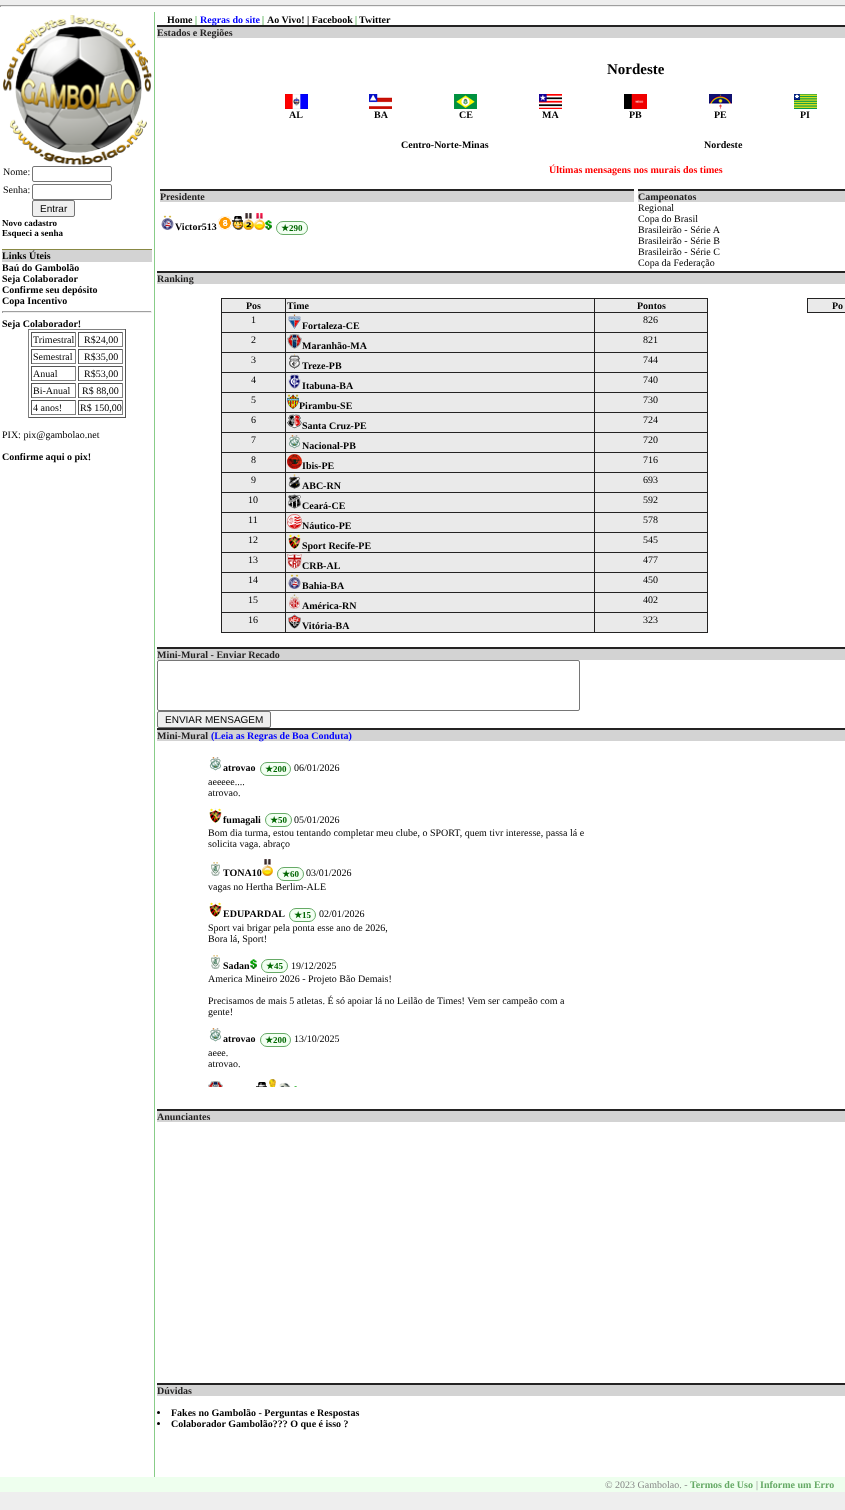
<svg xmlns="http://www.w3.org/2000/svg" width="845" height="1510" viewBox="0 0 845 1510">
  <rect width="100%" height="100%" fill="rgb(238,238,238)"/>
  <rect x="0" y="7" width="845" height="1470" fill="rgb(255,255,255)"/>
  <rect x="0" y="5" width="845" height="1" fill="rgb(159,159,159)"/>
  <rect x="0" y="5" width="1" height="2" fill="rgb(159,159,159)"/>
  <image x="2" y="15" width="150" height="150" href="pic1.png"/>
  <text x="3" y="175" font-family="Liberation Serif" font-size="10" fill="rgb(0,0,0)">Nome:</text>
  <rect x="32.5" y="166.5" width="79" height="15" rx="1.5" fill="none" stroke="rgb(118,118,118)"/>
  <text x="3" y="193" font-family="Liberation Serif" font-size="10" fill="rgb(0,0,0)">Senha:</text>
  <rect x="32.5" y="184.5" width="79" height="15" rx="1.5" fill="none" stroke="rgb(118,118,118)"/>
  <rect x="32.5" y="200.5" width="42" height="16" rx="1.5" fill="rgb(239,239,239)" stroke="rgb(118,118,118)"/>
  <text x="40" y="212" font-family="Liberation Sans" font-size="10" fill="rgb(0,0,0)">Entrar</text>
  <g font-family="Liberation Serif" font-size="9" font-weight="bold" fill="rgb(0,0,0)">
    <text>
      <tspan x="2" y="226">Novo cadastro</tspan>
      <tspan x="2" y="236">Esqueci a senha</tspan>
    </text>
  </g>
  <rect x="2" y="250" width="150" height="12" fill="rgb(211,211,211)"/>
  <rect x="2" y="249" width="150" height="1" fill="rgb(136,136,68)"/>
  <g font-family="Liberation Serif" font-size="10" font-weight="bold" fill="rgb(0,0,0)">
    <text>
      <tspan x="2" y="259">Links Úteis</tspan>
      <tspan x="2" y="271">Baú do Gambolão</tspan>
      <tspan x="2" y="282">Seja Colaborador</tspan>
      <tspan x="2" y="293">Confirme seu depósito</tspan>
      <tspan x="2" y="304">Copa Incentivo</tspan>
    </text>
  </g>
  <rect x="2" y="311" width="150" height="1" fill="rgb(159,159,159)"/>
  <rect x="151" y="311" width="1" height="2" fill="rgb(238,238,238)"/>
  <rect x="2" y="312" width="150" height="1" fill="rgb(238,238,238)"/>
  <rect x="2" y="311" width="1" height="2" fill="rgb(159,159,159)"/>
  <rect x="28" y="329" width="98" height="1" fill="rgb(128,128,128)"/>
  <rect x="125" y="329" width="1" height="89" fill="rgb(85,85,85)"/>
  <rect x="28" y="417" width="98" height="1" fill="rgb(85,85,85)"/>
  <rect x="28" y="329" width="1" height="89" fill="rgb(128,128,128)"/>
  <text x="2" y="327" font-family="Liberation Serif" font-size="10" font-weight="bold" fill="rgb(0,0,0)">Seja Colaborador!</text>
  <rect x="31" y="332" width="45" height="1" fill="rgb(85,85,85)"/>
  <rect x="75" y="332" width="1" height="15" fill="rgb(128,128,128)"/>
  <rect x="31" y="346" width="45" height="1" fill="rgb(128,128,128)"/>
  <rect x="31" y="332" width="1" height="15" fill="rgb(85,85,85)"/>
  <text x="33" y="343" font-family="Liberation Serif" font-size="10" fill="rgb(0,0,0)">Trimestral</text>
  <rect x="78" y="332" width="45" height="1" fill="rgb(85,85,85)"/>
  <rect x="122" y="332" width="1" height="15" fill="rgb(128,128,128)"/>
  <rect x="78" y="346" width="45" height="1" fill="rgb(128,128,128)"/>
  <rect x="78" y="332" width="1" height="15" fill="rgb(85,85,85)"/>
  <text x="84" y="343" font-family="Liberation Serif" font-size="10" fill="rgb(0,0,0)">R$24,00</text>
  <rect x="31" y="349" width="45" height="1" fill="rgb(85,85,85)"/>
  <rect x="75" y="349" width="1" height="15" fill="rgb(128,128,128)"/>
  <rect x="31" y="363" width="45" height="1" fill="rgb(128,128,128)"/>
  <rect x="31" y="349" width="1" height="15" fill="rgb(85,85,85)"/>
  <text x="33" y="360" font-family="Liberation Serif" font-size="10" fill="rgb(0,0,0)">Semestral</text>
  <rect x="78" y="349" width="45" height="1" fill="rgb(85,85,85)"/>
  <rect x="122" y="349" width="1" height="15" fill="rgb(128,128,128)"/>
  <rect x="78" y="363" width="45" height="1" fill="rgb(128,128,128)"/>
  <rect x="78" y="349" width="1" height="15" fill="rgb(85,85,85)"/>
  <text x="84" y="360" font-family="Liberation Serif" font-size="10" fill="rgb(0,0,0)">R$35,00</text>
  <rect x="31" y="366" width="45" height="1" fill="rgb(85,85,85)"/>
  <rect x="75" y="366" width="1" height="15" fill="rgb(128,128,128)"/>
  <rect x="31" y="380" width="45" height="1" fill="rgb(128,128,128)"/>
  <rect x="31" y="366" width="1" height="15" fill="rgb(85,85,85)"/>
  <text x="33" y="377" font-family="Liberation Serif" font-size="10" fill="rgb(0,0,0)">Anual</text>
  <rect x="78" y="366" width="45" height="1" fill="rgb(85,85,85)"/>
  <rect x="122" y="366" width="1" height="15" fill="rgb(128,128,128)"/>
  <rect x="78" y="380" width="45" height="1" fill="rgb(128,128,128)"/>
  <rect x="78" y="366" width="1" height="15" fill="rgb(85,85,85)"/>
  <text x="84" y="377" font-family="Liberation Serif" font-size="10" fill="rgb(0,0,0)">R$53,00</text>
  <rect x="31" y="383" width="45" height="1" fill="rgb(85,85,85)"/>
  <rect x="75" y="383" width="1" height="15" fill="rgb(128,128,128)"/>
  <rect x="31" y="397" width="45" height="1" fill="rgb(128,128,128)"/>
  <rect x="31" y="383" width="1" height="15" fill="rgb(85,85,85)"/>
  <text x="33" y="394" font-family="Liberation Serif" font-size="10" fill="rgb(0,0,0)">Bi-Anual</text>
  <rect x="78" y="383" width="45" height="1" fill="rgb(85,85,85)"/>
  <rect x="122" y="383" width="1" height="15" fill="rgb(128,128,128)"/>
  <rect x="78" y="397" width="45" height="1" fill="rgb(128,128,128)"/>
  <rect x="78" y="383" width="1" height="15" fill="rgb(85,85,85)"/>
  <text x="82" y="394" font-family="Liberation Serif" font-size="10" fill="rgb(0,0,0)">R$ 88,00</text>
  <rect x="31" y="400" width="45" height="1" fill="rgb(85,85,85)"/>
  <rect x="75" y="400" width="1" height="15" fill="rgb(128,128,128)"/>
  <rect x="31" y="414" width="45" height="1" fill="rgb(128,128,128)"/>
  <rect x="31" y="400" width="1" height="15" fill="rgb(85,85,85)"/>
  <text x="33" y="411" font-family="Liberation Serif" font-size="10" fill="rgb(0,0,0)">4 anos!</text>
  <rect x="78" y="400" width="45" height="1" fill="rgb(85,85,85)"/>
  <rect x="122" y="400" width="1" height="15" fill="rgb(128,128,128)"/>
  <rect x="78" y="414" width="45" height="1" fill="rgb(128,128,128)"/>
  <rect x="78" y="400" width="1" height="15" fill="rgb(85,85,85)"/>
  <g font-family="Liberation Serif" font-size="10" fill="rgb(0,0,0)">
    <text x="80" y="411">R$ 150,00</text>
    <text x="2" y="438">PIX: pix@gambolao.net</text>
  </g>
  <text x="2" y="460" font-family="Liberation Serif" font-size="10" font-weight="bold" fill="rgb(0,0,0)">Confirme aqui o pix!</text>
  <rect x="154" y="12" width="1" height="1465" fill="rgb(136,204,136)"/>
  <text x="167" y="23" font-family="Liberation Serif" font-size="10" font-weight="bold" fill="rgb(0,0,0)">Home</text>
  <rect x="157" y="25" width="688" height="2" fill="rgb(36,35,35)"/>
  <text x="195" y="23" font-family="Liberation Serif" font-size="10" fill="rgb(0,136,0)">|</text>
  <text x="200" y="23" font-family="Liberation Serif" font-size="10" font-weight="bold" fill="rgb(0,0,255)">Regras do site</text>
  <text x="262" y="23" font-family="Liberation Serif" font-size="10" fill="rgb(0,136,0)">|</text>
  <text x="267" y="23" font-family="Liberation Serif" font-size="10" font-weight="bold" fill="rgb(0,0,0)">Ao Vivo! | Facebook</text>
  <text x="355" y="23" font-family="Liberation Serif" font-size="10" fill="rgb(0,136,0)">|</text>
  <text x="359" y="23" font-family="Liberation Serif" font-size="10" font-weight="bold" fill="rgb(0,0,0)">Twitter</text>
  <rect x="157" y="27" width="688" height="11" fill="rgb(211,211,211)"/>
  <text x="157" y="36" font-family="Liberation Serif" font-size="10" font-weight="bold" fill="rgb(36,35,35)">Estados e Regiões</text>
  <text x="607" y="74" font-family="Liberation Serif" font-size="15" font-weight="bold" fill="rgb(0,0,0)">Nordeste</text>
  <image x="285" y="94" width="23" height="15" href="pic2.png"/>
  <text x="289" y="118" font-family="Liberation Serif" font-size="10" font-weight="bold" fill="rgb(0,0,0)">AL</text>
  <image x="369" y="94" width="23" height="15" href="pic3.png"/>
  <text x="374" y="118" font-family="Liberation Serif" font-size="10" font-weight="bold" fill="rgb(0,0,0)">BA</text>
  <image x="454" y="94" width="23" height="15" href="pic4.png"/>
  <text x="459" y="118" font-family="Liberation Serif" font-size="10" font-weight="bold" fill="rgb(0,0,0)">CE</text>
  <image x="539" y="94" width="23" height="15" href="pic5.png"/>
  <text x="542" y="118" font-family="Liberation Serif" font-size="10" font-weight="bold" fill="rgb(0,0,0)">MA</text>
  <image x="624" y="94" width="23" height="15" href="pic6.png"/>
  <text x="629" y="118" font-family="Liberation Serif" font-size="10" font-weight="bold" fill="rgb(0,0,0)">PB</text>
  <image x="709" y="94" width="23" height="15" href="pic7.png"/>
  <text x="714" y="118" font-family="Liberation Serif" font-size="10" font-weight="bold" fill="rgb(0,0,0)">PE</text>
  <image x="794" y="94" width="23" height="15" href="pic8.png"/>
  <g font-family="Liberation Serif" font-size="10" font-weight="bold" fill="rgb(0,0,0)">
    <text x="800" y="118">PI</text>
    <text x="401" y="148">Centro-Norte-Minas</text>
    <text x="704" y="148">Nordeste</text>
  </g>
  <text x="549" y="173" font-family="Liberation Serif" font-size="10" font-weight="bold" fill="rgb(255,0,0)">Últimas mensagens nos murais dos times</text>
  <rect x="160" y="191" width="474" height="11" fill="rgb(211,211,211)"/>
  <rect x="160" y="189" width="474" height="2" fill="rgb(36,35,35)"/>
  <text x="160" y="200" font-family="Liberation Serif" font-size="10" font-weight="bold" fill="rgb(36,35,35)">Presidente</text>
  <image x="161" y="215" width="13" height="15" href="pic9.png"/>
  <text x="175" y="230" font-family="Liberation Serif" font-size="10" font-weight="bold" fill="rgb(0,0,0)">Victor513</text>
  <image x="218" y="216" width="14" height="14" href="pic10.png"/>
  <image x="232" y="216" width="11" height="14" href="pic11.png"/>
  <image x="243" y="213" width="11" height="17" href="pic12.png"/>
  <image x="254" y="213" width="11" height="17" href="pic13.png"/>
  <image x="265" y="220" width="7" height="10" href="pic14.png"/>
  <rect x="276.5" y="221.5" width="31" height="13" rx="6.5" fill="rgb(243,255,243)" stroke="rgb(102,170,102)"/>
  <text x="281" y="231" font-family="DejaVu Sans" font-size="9" font-weight="bold" fill="rgb(0,102,0)">★</text>
  <text x="289" y="231" font-family="Liberation Serif" font-size="9" font-weight="bold" fill="rgb(0,102,0)">290</text>
  <rect x="638" y="191" width="207" height="11" fill="rgb(211,211,211)"/>
  <rect x="638" y="189" width="207" height="2" fill="rgb(36,35,35)"/>
  <text x="638" y="200" font-family="Liberation Serif" font-size="10" font-weight="bold" fill="rgb(36,35,35)">Campeonatos</text>
  <g font-family="Liberation Serif" font-size="10" fill="rgb(0,0,0)">
    <text>
      <tspan x="638" y="211">Regional</tspan>
      <tspan x="638" y="222">Copa do Brasil</tspan>
      <tspan x="638" y="233">Brasileirão - Série A</tspan>
      <tspan x="638" y="244">Brasileirão - Série B</tspan>
      <tspan x="638" y="255">Brasileirão - Série C</tspan>
      <tspan x="638" y="266">Copa da Federação</tspan>
    </text>
  </g>
  <rect x="157" y="273" width="688" height="11" fill="rgb(211,211,211)"/>
  <rect x="157" y="271" width="688" height="2" fill="rgb(36,35,35)"/>
  <text x="157" y="282" font-family="Liberation Serif" font-size="10" font-weight="bold" fill="rgb(36,35,35)">Ranking</text>
  <rect x="222" y="299" width="485" height="333" fill="rgb(234,234,234)"/>
  <rect x="221" y="298" width="487" height="1" fill="rgb(36,35,35)"/>
  <rect x="707" y="298" width="1" height="335" fill="rgb(36,35,35)"/>
  <rect x="221" y="632" width="487" height="1" fill="rgb(36,35,35)"/>
  <rect x="221" y="298" width="1" height="335" fill="rgb(36,35,35)"/>
  <text x="246" y="309" font-family="Liberation Serif" font-size="10" font-weight="bold" fill="rgb(0,0,0)">Pos</text>
  <rect x="594" y="312" width="114" height="1" fill="rgb(36,35,35)"/>
  <rect x="594" y="332" width="114" height="1" fill="rgb(36,35,35)"/>
  <rect x="594" y="352" width="114" height="1" fill="rgb(36,35,35)"/>
  <rect x="594" y="372" width="114" height="1" fill="rgb(36,35,35)"/>
  <rect x="594" y="392" width="114" height="1" fill="rgb(36,35,35)"/>
  <rect x="594" y="412" width="114" height="1" fill="rgb(36,35,35)"/>
  <rect x="594" y="432" width="114" height="1" fill="rgb(36,35,35)"/>
  <rect x="594" y="452" width="114" height="1" fill="rgb(36,35,35)"/>
  <rect x="594" y="472" width="114" height="1" fill="rgb(36,35,35)"/>
  <rect x="594" y="492" width="114" height="1" fill="rgb(36,35,35)"/>
  <rect x="594" y="512" width="114" height="1" fill="rgb(36,35,35)"/>
  <rect x="594" y="532" width="114" height="1" fill="rgb(36,35,35)"/>
  <rect x="594" y="552" width="114" height="1" fill="rgb(36,35,35)"/>
  <rect x="594" y="572" width="114" height="1" fill="rgb(36,35,35)"/>
  <rect x="594" y="592" width="114" height="1" fill="rgb(36,35,35)"/>
  <rect x="594" y="612" width="114" height="1" fill="rgb(36,35,35)"/>
  <rect x="594" y="612" width="1" height="21" fill="rgb(36,35,35)"/>
  <rect x="285" y="612" width="310" height="1" fill="rgb(36,35,35)"/>
  <rect x="594" y="592" width="1" height="21" fill="rgb(36,35,35)"/>
  <rect x="285" y="592" width="310" height="1" fill="rgb(36,35,35)"/>
  <rect x="594" y="572" width="1" height="21" fill="rgb(36,35,35)"/>
  <rect x="285" y="572" width="310" height="1" fill="rgb(36,35,35)"/>
  <rect x="594" y="552" width="1" height="21" fill="rgb(36,35,35)"/>
  <rect x="285" y="552" width="310" height="1" fill="rgb(36,35,35)"/>
  <rect x="594" y="532" width="1" height="21" fill="rgb(36,35,35)"/>
  <rect x="285" y="532" width="310" height="1" fill="rgb(36,35,35)"/>
  <rect x="594" y="512" width="1" height="21" fill="rgb(36,35,35)"/>
  <rect x="285" y="512" width="310" height="1" fill="rgb(36,35,35)"/>
  <rect x="594" y="492" width="1" height="21" fill="rgb(36,35,35)"/>
  <rect x="285" y="492" width="310" height="1" fill="rgb(36,35,35)"/>
  <rect x="594" y="472" width="1" height="21" fill="rgb(36,35,35)"/>
  <rect x="285" y="472" width="310" height="1" fill="rgb(36,35,35)"/>
  <rect x="594" y="452" width="1" height="21" fill="rgb(36,35,35)"/>
  <rect x="285" y="452" width="310" height="1" fill="rgb(36,35,35)"/>
  <rect x="594" y="432" width="1" height="21" fill="rgb(36,35,35)"/>
  <rect x="285" y="432" width="310" height="1" fill="rgb(36,35,35)"/>
  <rect x="594" y="412" width="1" height="21" fill="rgb(36,35,35)"/>
  <rect x="285" y="412" width="310" height="1" fill="rgb(36,35,35)"/>
  <rect x="594" y="392" width="1" height="21" fill="rgb(36,35,35)"/>
  <rect x="285" y="392" width="310" height="1" fill="rgb(36,35,35)"/>
  <rect x="594" y="372" width="1" height="21" fill="rgb(36,35,35)"/>
  <rect x="285" y="372" width="310" height="1" fill="rgb(36,35,35)"/>
  <rect x="594" y="352" width="1" height="21" fill="rgb(36,35,35)"/>
  <rect x="285" y="352" width="310" height="1" fill="rgb(36,35,35)"/>
  <rect x="594" y="332" width="1" height="21" fill="rgb(36,35,35)"/>
  <rect x="285" y="332" width="310" height="1" fill="rgb(36,35,35)"/>
  <rect x="594" y="312" width="1" height="21" fill="rgb(36,35,35)"/>
  <rect x="285" y="312" width="310" height="1" fill="rgb(36,35,35)"/>
  <rect x="285" y="612" width="1" height="21" fill="rgb(36,35,35)"/>
  <rect x="221" y="612" width="65" height="1" fill="rgb(36,35,35)"/>
  <rect x="285" y="592" width="1" height="21" fill="rgb(36,35,35)"/>
  <rect x="221" y="592" width="65" height="1" fill="rgb(36,35,35)"/>
  <rect x="285" y="572" width="1" height="21" fill="rgb(36,35,35)"/>
  <rect x="221" y="572" width="65" height="1" fill="rgb(36,35,35)"/>
  <rect x="285" y="552" width="1" height="21" fill="rgb(36,35,35)"/>
  <rect x="221" y="552" width="65" height="1" fill="rgb(36,35,35)"/>
  <rect x="285" y="532" width="1" height="21" fill="rgb(36,35,35)"/>
  <rect x="221" y="532" width="65" height="1" fill="rgb(36,35,35)"/>
  <rect x="285" y="512" width="1" height="21" fill="rgb(36,35,35)"/>
  <rect x="221" y="512" width="65" height="1" fill="rgb(36,35,35)"/>
  <rect x="285" y="492" width="1" height="21" fill="rgb(36,35,35)"/>
  <rect x="221" y="492" width="65" height="1" fill="rgb(36,35,35)"/>
  <rect x="285" y="472" width="1" height="21" fill="rgb(36,35,35)"/>
  <rect x="221" y="472" width="65" height="1" fill="rgb(36,35,35)"/>
  <rect x="285" y="452" width="1" height="21" fill="rgb(36,35,35)"/>
  <rect x="221" y="452" width="65" height="1" fill="rgb(36,35,35)"/>
  <rect x="285" y="432" width="1" height="21" fill="rgb(36,35,35)"/>
  <rect x="221" y="432" width="65" height="1" fill="rgb(36,35,35)"/>
  <rect x="285" y="412" width="1" height="21" fill="rgb(36,35,35)"/>
  <rect x="221" y="412" width="65" height="1" fill="rgb(36,35,35)"/>
  <rect x="285" y="392" width="1" height="21" fill="rgb(36,35,35)"/>
  <rect x="221" y="392" width="65" height="1" fill="rgb(36,35,35)"/>
  <rect x="285" y="372" width="1" height="21" fill="rgb(36,35,35)"/>
  <rect x="221" y="372" width="65" height="1" fill="rgb(36,35,35)"/>
  <rect x="285" y="352" width="1" height="21" fill="rgb(36,35,35)"/>
  <rect x="221" y="352" width="65" height="1" fill="rgb(36,35,35)"/>
  <rect x="285" y="332" width="1" height="21" fill="rgb(36,35,35)"/>
  <rect x="221" y="332" width="65" height="1" fill="rgb(36,35,35)"/>
  <rect x="285" y="312" width="1" height="21" fill="rgb(36,35,35)"/>
  <rect x="221" y="312" width="65" height="1" fill="rgb(36,35,35)"/>
  <rect x="285" y="298" width="1" height="15" fill="rgb(36,35,35)"/>
  <text x="287" y="309" font-family="Liberation Serif" font-size="10" font-weight="bold" fill="rgb(0,0,0)">Time</text>
  <rect x="594" y="298" width="1" height="15" fill="rgb(36,35,35)"/>
  <text x="637" y="309" font-family="Liberation Serif" font-size="10" font-weight="bold" fill="rgb(0,0,0)">Pontos</text>
  <g font-family="Liberation Serif" font-size="10" fill="rgb(0,0,0)">
    <text x="251" y="323">1</text>
    <text x="643" y="323">826</text>
  </g>
  <image x="288" y="314" width="13" height="15" href="pic15.png"/>
  <text x="302" y="329" font-family="Liberation Serif" font-size="10" font-weight="bold" fill="rgb(0,0,0)">Fortaleza-CE</text>
  <g font-family="Liberation Serif" font-size="10" fill="rgb(0,0,0)">
    <text x="251" y="343">2</text>
    <text x="643" y="343">821</text>
  </g>
  <image x="287" y="334" width="15" height="15" href="pic16.png"/>
  <text x="302" y="349" font-family="Liberation Serif" font-size="10" font-weight="bold" fill="rgb(0,0,0)">Maranhão-MA</text>
  <g font-family="Liberation Serif" font-size="10" fill="rgb(0,0,0)">
    <text x="251" y="363">3</text>
    <text x="643" y="363">744</text>
  </g>
  <image x="289" y="354" width="11" height="15" href="pic17.png"/>
  <text x="302" y="369" font-family="Liberation Serif" font-size="10" font-weight="bold" fill="rgb(0,0,0)">Treze-PB</text>
  <g font-family="Liberation Serif" font-size="10" fill="rgb(0,0,0)">
    <text x="251" y="383">4</text>
    <text x="643" y="383">740</text>
  </g>
  <image x="288" y="374" width="13" height="15" href="pic18.png"/>
  <text x="302" y="389" font-family="Liberation Serif" font-size="10" font-weight="bold" fill="rgb(0,0,0)">Itabuna-BA</text>
  <g font-family="Liberation Serif" font-size="10" fill="rgb(0,0,0)">
    <text x="251" y="403">5</text>
    <text x="643" y="403">730</text>
  </g>
  <image x="287" y="394" width="12" height="15" href="pic19.png"/>
  <text x="299" y="409" font-family="Liberation Serif" font-size="10" font-weight="bold" fill="rgb(0,0,0)">Pirambu-SE</text>
  <g font-family="Liberation Serif" font-size="10" fill="rgb(0,0,0)">
    <text x="251" y="423">6</text>
    <text x="643" y="423">724</text>
  </g>
  <image x="287" y="414" width="15" height="15" href="pic20.png"/>
  <text x="302" y="429" font-family="Liberation Serif" font-size="10" font-weight="bold" fill="rgb(0,0,0)">Santa Cruz-PE</text>
  <g font-family="Liberation Serif" font-size="10" fill="rgb(0,0,0)">
    <text x="251" y="443">7</text>
    <text x="643" y="443">720</text>
  </g>
  <image x="288" y="435" width="13" height="14" href="pic21.png"/>
  <text x="302" y="449" font-family="Liberation Serif" font-size="10" font-weight="bold" fill="rgb(0,0,0)">Nacional-PB</text>
  <g font-family="Liberation Serif" font-size="10" fill="rgb(0,0,0)">
    <text x="251" y="463">8</text>
    <text x="643" y="463">716</text>
  </g>
  <image x="287" y="454" width="15" height="15" href="pic22.png"/>
  <text x="302" y="469" font-family="Liberation Serif" font-size="10" font-weight="bold" fill="rgb(0,0,0)">Ibis-PE</text>
  <g font-family="Liberation Serif" font-size="10" fill="rgb(0,0,0)">
    <text x="251" y="483">9</text>
    <text x="643" y="483">693</text>
  </g>
  <image x="288" y="474" width="13" height="15" href="pic23.png"/>
  <text x="302" y="489" font-family="Liberation Serif" font-size="10" font-weight="bold" fill="rgb(0,0,0)">ABC-RN</text>
  <g font-family="Liberation Serif" font-size="10" fill="rgb(0,0,0)">
    <text x="248" y="503">10</text>
    <text x="643" y="503">592</text>
  </g>
  <image x="288" y="494" width="13" height="15" href="pic24.png"/>
  <text x="302" y="509" font-family="Liberation Serif" font-size="10" font-weight="bold" fill="rgb(0,0,0)">Ceará-CE</text>
  <g font-family="Liberation Serif" font-size="10" fill="rgb(0,0,0)">
    <text x="248" y="523">11</text>
    <text x="643" y="523">578</text>
  </g>
  <image x="287" y="514" width="15" height="15" href="pic25.png"/>
  <text x="302" y="529" font-family="Liberation Serif" font-size="10" font-weight="bold" fill="rgb(0,0,0)">Náutico-PE</text>
  <g font-family="Liberation Serif" font-size="10" fill="rgb(0,0,0)">
    <text x="248" y="543">12</text>
    <text x="643" y="543">545</text>
  </g>
  <image x="288" y="534" width="13" height="15" href="pic26.png"/>
  <text x="302" y="549" font-family="Liberation Serif" font-size="10" font-weight="bold" fill="rgb(0,0,0)">Sport Recife-PE</text>
  <g font-family="Liberation Serif" font-size="10" fill="rgb(0,0,0)">
    <text x="248" y="563">13</text>
    <text x="643" y="563">477</text>
  </g>
  <image x="287" y="554" width="15" height="15" href="pic27.png"/>
  <text x="302" y="569" font-family="Liberation Serif" font-size="10" font-weight="bold" fill="rgb(0,0,0)">CRB-AL</text>
  <g font-family="Liberation Serif" font-size="10" fill="rgb(0,0,0)">
    <text x="248" y="583">14</text>
    <text x="643" y="583">450</text>
  </g>
  <image x="288" y="574" width="13" height="15" href="pic28.png"/>
  <text x="302" y="589" font-family="Liberation Serif" font-size="10" font-weight="bold" fill="rgb(0,0,0)">Bahia-BA</text>
  <g font-family="Liberation Serif" font-size="10" fill="rgb(0,0,0)">
    <text x="248" y="603">15</text>
    <text x="643" y="603">402</text>
  </g>
  <image x="289" y="594" width="11" height="15" href="pic29.png"/>
  <text x="302" y="609" font-family="Liberation Serif" font-size="10" font-weight="bold" fill="rgb(0,0,0)">América-RN</text>
  <g font-family="Liberation Serif" font-size="10" fill="rgb(0,0,0)">
    <text x="248" y="623">16</text>
    <text x="643" y="623">323</text>
  </g>
  <image x="288" y="614" width="13" height="15" href="pic30.png"/>
  <text x="302" y="629" font-family="Liberation Serif" font-size="10" font-weight="bold" fill="rgb(0,0,0)">Vitória-BA</text>
  <rect x="808" y="299" width="37" height="13" fill="rgb(234,234,234)"/>
  <rect x="807" y="298" width="38" height="1" fill="rgb(36,35,35)"/>
  <rect x="807" y="312" width="38" height="1" fill="rgb(36,35,35)"/>
  <rect x="807" y="298" width="1" height="15" fill="rgb(36,35,35)"/>
  <text x="832" y="309" font-family="Liberation Serif" font-size="10" font-weight="bold" fill="rgb(0,0,0)">Po</text>
  <rect x="157" y="649" width="688" height="11" fill="rgb(211,211,211)"/>
  <rect x="157" y="647" width="688" height="2" fill="rgb(36,35,35)"/>
  <text x="157" y="658" font-family="Liberation Serif" font-size="10" font-weight="bold" fill="rgb(36,35,35)">Mini-Mural - Enviar Recado</text>
  <rect x="157.5" y="660.5" width="422" height="50" rx="1.5" fill="none" stroke="rgb(118,118,118)"/>
  <rect x="157.5" y="711.5" width="113" height="16" rx="1.5" fill="rgb(239,239,239)" stroke="rgb(118,118,118)"/>
  <text x="165" y="723" font-family="Liberation Sans" font-size="10" fill="rgb(0,0,0)">ENVIAR MENSAGEM</text>
  <rect x="157" y="730" width="688" height="11" fill="rgb(211,211,211)"/>
  <rect x="157" y="728" width="688" height="2" fill="rgb(36,35,35)"/>
  <text x="157" y="739" font-family="Liberation Serif" font-size="10" font-weight="bold" fill="rgb(36,35,35)">Mini-Mural</text>
  <text x="211" y="739" font-family="Liberation Serif" font-size="10" font-weight="bold" fill="rgb(0,0,255)">(Leia as Regras de Boa Conduta)</text>
  <image x="209" y="757" width="13" height="14" href="pic31.png"/>
  <text x="223" y="771" font-family="Liberation Serif" font-size="10" font-weight="bold" fill="rgb(0,0,0)">atrovao</text>
  <rect x="260.5" y="762.5" width="30" height="13" rx="6.5" fill="rgb(243,255,243)" stroke="rgb(102,170,102)"/>
  <text x="265" y="772" font-family="DejaVu Sans" font-size="9" font-weight="bold" fill="rgb(0,102,0)">★</text>
  <text x="273" y="772" font-family="Liberation Serif" font-size="9" font-weight="bold" fill="rgb(0,102,0)">200</text>
  <g font-family="Liberation Serif" font-size="10" fill="rgb(0,0,0)">
    <text x="294" y="771">06/01/2026</text>
    <text>
      <tspan x="208" y="785">aeeeee....</tspan>
      <tspan x="208" y="796">atrovao.</tspan>
    </text>
  </g>
  <image x="209" y="808" width="13" height="15" href="pic32.png"/>
  <text x="223" y="823" font-family="Liberation Serif" font-size="10" font-weight="bold" fill="rgb(0,0,0)">fumagali</text>
  <rect x="265.5" y="813.5" width="26" height="13" rx="6.5" fill="rgb(243,255,243)" stroke="rgb(102,170,102)"/>
  <text x="270" y="823" font-family="DejaVu Sans" font-size="9" font-weight="bold" fill="rgb(0,102,0)">★</text>
  <text x="278" y="823" font-family="Liberation Serif" font-size="9" font-weight="bold" fill="rgb(0,102,0)">50</text>
  <g font-family="Liberation Serif" font-size="10" fill="rgb(0,0,0)">
    <text x="294" y="823">05/01/2026</text>
    <text>
      <tspan x="208" y="836">Bom dia turma, estou tentando completar meu clube, o SPORT, quem tivr interesse, passa lá e</tspan>
      <tspan x="208" y="847">solicita vaga. abraço</tspan>
    </text>
  </g>
  <image x="211" y="862" width="9" height="14" href="pic33.png"/>
  <text x="223" y="876" font-family="Liberation Serif" font-size="10" font-weight="bold" fill="rgb(0,0,0)">TONA10</text>
  <image x="262" y="859" width="11" height="17" href="pic34.png"/>
  <rect x="277.5" y="867.5" width="26" height="13" rx="6.5" fill="rgb(243,255,243)" stroke="rgb(102,170,102)"/>
  <text x="282" y="877" font-family="DejaVu Sans" font-size="9" font-weight="bold" fill="rgb(0,102,0)">★</text>
  <text x="290" y="877" font-family="Liberation Serif" font-size="9" font-weight="bold" fill="rgb(0,102,0)">60</text>
  <g font-family="Liberation Serif" font-size="10" fill="rgb(0,0,0)">
    <text x="306" y="876">03/01/2026</text>
    <text x="208" y="890">vagas no Hertha Berlim-ALE</text>
  </g>
  <image x="209" y="902" width="13" height="15" href="pic32.png"/>
  <text x="223" y="917" font-family="Liberation Serif" font-size="10" font-weight="bold" fill="rgb(0,0,0)">EDUPARDAL</text>
  <rect x="289.5" y="908.5" width="26" height="13" rx="6.5" fill="rgb(243,255,243)" stroke="rgb(102,170,102)"/>
  <text x="294" y="918" font-family="DejaVu Sans" font-size="9" font-weight="bold" fill="rgb(0,102,0)">★</text>
  <text x="302" y="918" font-family="Liberation Serif" font-size="9" font-weight="bold" fill="rgb(0,102,0)">15</text>
  <g font-family="Liberation Serif" font-size="10" fill="rgb(0,0,0)">
    <text x="319" y="917">02/01/2026</text>
    <text>
      <tspan x="208" y="931">Sport vai brigar pela ponta esse ano de 2026,</tspan>
      <tspan x="208" y="942">Bora lá, Sport!</tspan>
    </text>
  </g>
  <image x="211" y="955" width="9" height="14" href="pic33.png"/>
  <text x="223" y="969" font-family="Liberation Serif" font-size="10" font-weight="bold" fill="rgb(0,0,0)">Sadan</text>
  <image x="250" y="959" width="7" height="10" href="pic35.png"/>
  <rect x="261.5" y="959.5" width="26" height="13" rx="6.5" fill="rgb(243,255,243)" stroke="rgb(102,170,102)"/>
  <text x="266" y="969" font-family="DejaVu Sans" font-size="9" font-weight="bold" fill="rgb(0,102,0)">★</text>
  <text x="274" y="969" font-family="Liberation Serif" font-size="9" font-weight="bold" fill="rgb(0,102,0)">45</text>
  <g font-family="Liberation Serif" font-size="10" fill="rgb(0,0,0)">
    <text x="291" y="969">19/12/2025</text>
    <text x="208" y="982">America Mineiro 2026 - Projeto Bão Demais!</text>
    <text>
      <tspan x="208" y="1004">Precisamos de mais 5 atletas. É só apoiar lá no Leilão de Times! Vem ser campeão com a</tspan>
      <tspan x="208" y="1015">gente!</tspan>
    </text>
  </g>
  <image x="209" y="1028" width="13" height="14" href="pic31.png"/>
  <text x="223" y="1042" font-family="Liberation Serif" font-size="10" font-weight="bold" fill="rgb(0,0,0)">atrovao</text>
  <rect x="260.5" y="1033.5" width="30" height="13" rx="6.5" fill="rgb(243,255,243)" stroke="rgb(102,170,102)"/>
  <text x="265" y="1043" font-family="DejaVu Sans" font-size="9" font-weight="bold" fill="rgb(0,102,0)">★</text>
  <text x="273" y="1043" font-family="Liberation Serif" font-size="9" font-weight="bold" fill="rgb(0,102,0)">200</text>
  <g font-family="Liberation Serif" font-size="10" fill="rgb(0,0,0)">
    <text x="294" y="1042">13/10/2025</text>
    <text>
      <tspan x="208" y="1056">aeee.</tspan>
      <tspan x="208" y="1067">atrovao.</tspan>
    </text>
  </g>
  <image x="208" y="1081" width="15" height="6" href="pic36.png"/>
  <image x="256" y="1082" width="11" height="5" href="pic37.png"/>
  <image x="269" y="1079" width="7" height="8" href="pic38.png"/>
  <image x="279" y="1082" width="12" height="5" href="pic39.png"/>
  <image x="294" y="1086" width="3" height="1" href="pic40.png"/>
  <rect x="157" y="1111" width="688" height="11" fill="rgb(211,211,211)"/>
  <rect x="157" y="1109" width="688" height="2" fill="rgb(36,35,35)"/>
  <text x="157" y="1120" font-family="Liberation Serif" font-size="10" font-weight="bold" fill="rgb(36,35,35)">Anunciantes</text>
  <rect x="157" y="1385" width="688" height="11" fill="rgb(211,211,211)"/>
  <rect x="157" y="1383" width="688" height="2" fill="rgb(36,35,35)"/>
  <text x="157" y="1394" font-family="Liberation Serif" font-size="10" font-weight="bold" fill="rgb(36,35,35)">Dúvidas</text>
  <circle cx="158.5" cy="1412.5" r="1.5" fill="rgb(0,0,0)"/>
  <text x="171" y="1416" font-family="Liberation Serif" font-size="10" font-weight="bold" fill="rgb(0,0,0)">Fakes no Gambolão - Perguntas e Respostas</text>
  <circle cx="158.5" cy="1423.5" r="1.5" fill="rgb(0,0,0)"/>
  <text x="171" y="1427" font-family="Liberation Serif" font-size="10" font-weight="bold" fill="rgb(0,0,0)">Colaborador Gambolão??? O que é isso ?</text>
  <rect x="0" y="1477" width="845" height="15" fill="rgb(238,255,238)"/>
  <text x="605" y="1488" font-family="Liberation Serif" font-size="10" fill="rgb(136,136,136)">© 2023 Gambolao. -</text>
  <text x="690" y="1488" font-family="Liberation Serif" font-size="10" font-weight="bold" fill="rgb(102,170,102)">Termos de Uso</text>
  <text x="756" y="1488" font-family="Liberation Serif" font-size="10" fill="rgb(136,136,136)">|</text>
  <text x="760" y="1488" font-family="Liberation Serif" font-size="10" font-weight="bold" fill="rgb(102,170,102)">Informe um Erro</text>
</svg>
